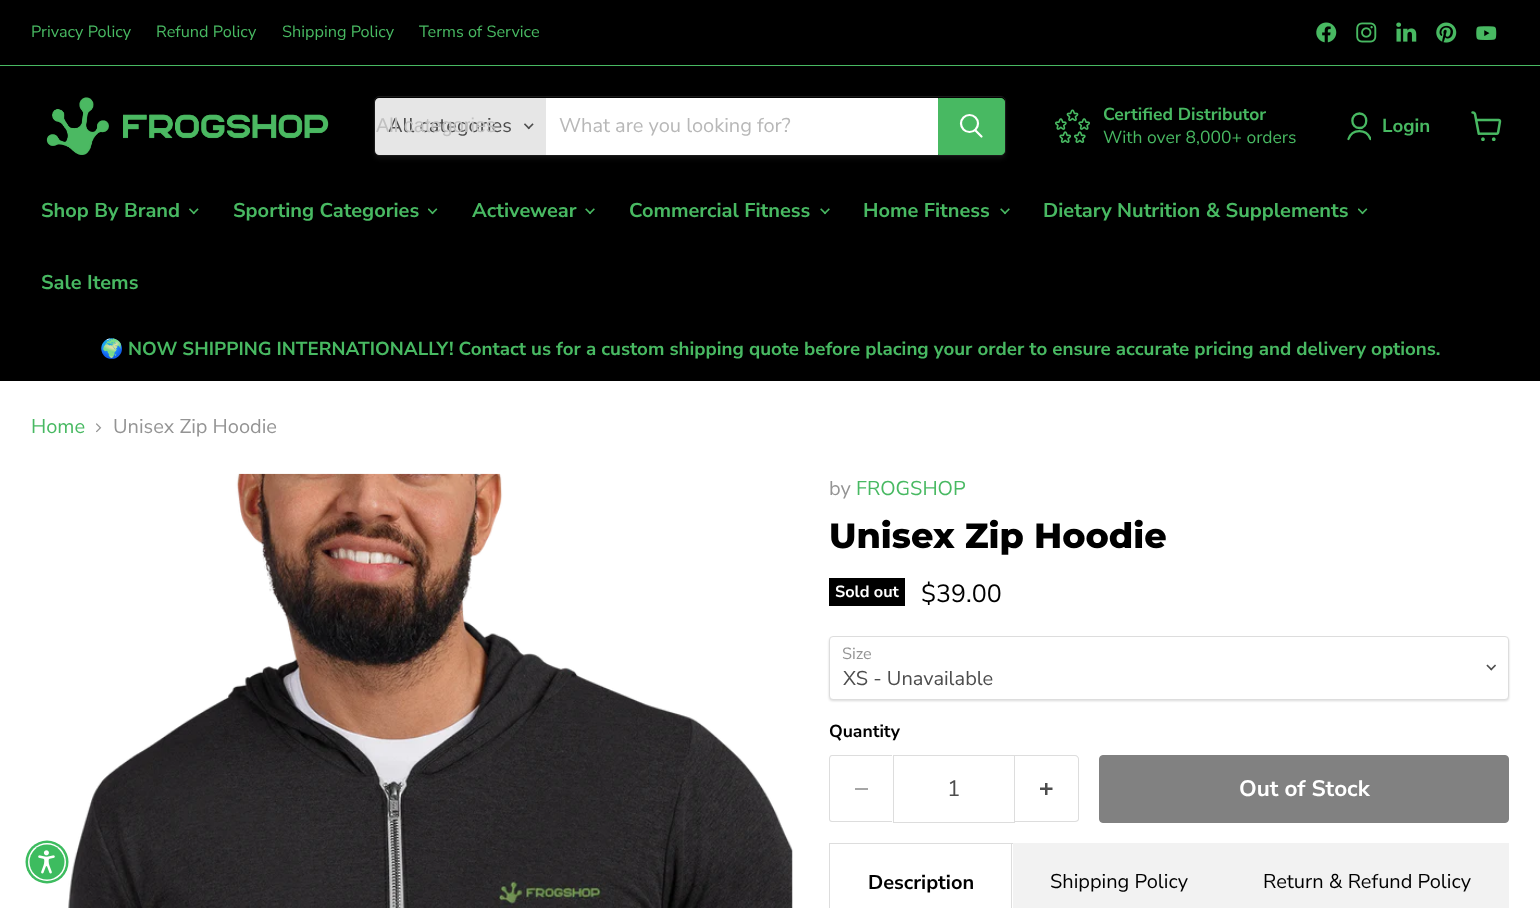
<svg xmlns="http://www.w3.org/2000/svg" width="1540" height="908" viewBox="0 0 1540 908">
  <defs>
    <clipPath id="clip1"><rect x="1346" y="111" width="25" height="30"/></clipPath>
  </defs>
  <rect width="100%" height="100%" fill="rgb(255,255,255)"/>
  <rect x="0" y="0" width="1540" height="65" fill="rgb(0,0,0)"/>
  <rect x="0" y="65" width="1540" height="1" fill="rgb(72,185,98)"/>
  <g font-family="Nunito Sans" font-size="16.25" fill="rgb(72,185,98)">
    <text x="31" y="37">Privacy Policy</text>
    <text x="156" y="37">Refund Policy</text>
    <text x="282" y="37">Shipping Policy</text>
    <text x="419" y="37">Terms of Service</text>
  </g>
  <image x="1316" y="22" width="21" height="21" href="pic1.png"/>
  <image x="1356" y="22" width="21" height="21" href="pic2.png"/>
  <image x="1396" y="22" width="21" height="20" href="pic3.png"/>
  <image x="1436" y="22" width="21" height="21" href="pic4.png"/>
  <image x="1476" y="26" width="21" height="14" href="pic5.png"/>
  <rect x="0" y="66" width="1540" height="315" fill="rgb(0,0,0)"/>
  <image x="46" y="97" width="283" height="58" href="pic6.png"/>
  <rect x="374" y="99" width="632" height="60" rx="5" fill="rgba(128,128,128,0.11)" filter="blur(2px)"/>
  <rect x="374.5" y="96.5" width="631" height="59" rx="4.5" fill="none" stroke="rgb(26,26,26)"/>
  <path d="M379 98H546V155H379C377 155 375 153 375 151V102C375 100 377 98 379 98Z" fill="rgb(230,230,230)"/>
  <text x="388" y="132" font-family="Nunito Sans" font-size="20" fill="rgb(77,77,77)">All categories</text>
  <text x="376" y="132" font-family="Liberation Sans" font-size="20" fill="rgb(193,193,193)">All categories</text>
  <image x="524" y="123" width="10" height="7" href="pic7.png"/>
  <rect x="546" y="98" width="392" height="57" fill="rgb(255,255,255)"/>
  <text x="559" y="132" font-family="Nunito Sans" font-size="20" fill="rgb(184,184,184)">What are you looking for?</text>
  <path d="M938.5 98.5H1001C1003 98.5 1004.5 100 1004.5 102V151C1004.5 153 1003 154.5 1001 154.5H938.5Z" fill="rgb(72,185,98)" stroke="rgb(72,185,98)"/>
  <path d="M981.5 136.5L975.5 130.5" fill="none" stroke="rgb(255,255,255)" stroke-width="2.2" stroke-linecap="round"/>
  <circle cx="969.5" cy="123.5" r="8.5" fill="none" stroke="rgb(255,255,255)" stroke-width="2.2"/>
  <image x="1055" y="109" width="35" height="34" href="pic8.png"/>
  <text x="1103" y="120" font-family="Nunito Sans" font-size="17.5" font-weight="bold" fill="rgb(72,185,98)">Certified Distributor</text>
  <text x="1103" y="143" font-family="Nunito Sans" font-size="17.5" fill="rgb(72,185,98)">With over 8,000+ orders</text>
  <path d="M1359.5 128C1368.5 128 1368.5 113.5 1359.5 113.5C1350 113.5 1350 128 1359.5 128Z" fill="none" stroke="rgb(72,185,98)" stroke-width="2.3" stroke-linecap="round" stroke-linejoin="round"/>
  <g clip-path="url(#clip1)">
    <path d="M1370.5 139C1366.5 128.5 1352 128.5 1348.5 139" fill="none" stroke="rgb(72,185,98)" stroke-width="2.3" stroke-linecap="round" stroke-linejoin="round"/>
  </g>
  <text x="1382" y="132" font-family="Nunito Sans" font-size="18.75" font-weight="bold" fill="rgb(72,185,98)">Login</text>
  <image x="1471" y="111" width="31" height="30" href="pic9.png"/>
  <text x="41" y="217" font-family="Nunito Sans" font-size="20" font-weight="bold" fill="rgb(72,185,98)">Shop By Brand</text>
  <image x="189" y="208" width="10" height="7" href="pic10.png"/>
  <text x="233" y="217" font-family="Nunito Sans" font-size="20" font-weight="bold" fill="rgb(72,185,98)">Sporting Categories</text>
  <image x="428" y="208" width="10" height="7" href="pic11.png"/>
  <text x="472" y="217" font-family="Nunito Sans" font-size="20" font-weight="bold" fill="rgb(72,185,98)">Activewear</text>
  <image x="585" y="208" width="10" height="7" href="pic12.png"/>
  <text x="629" y="217" font-family="Nunito Sans" font-size="20" font-weight="bold" fill="rgb(72,185,98)">Commercial Fitness</text>
  <image x="820" y="208" width="10" height="7" href="pic12.png"/>
  <text x="863" y="217" font-family="Nunito Sans" font-size="20" font-weight="bold" fill="rgb(72,185,98)">Home Fitness</text>
  <image x="1000" y="208" width="10" height="7" href="pic12.png"/>
  <text x="1043" y="217" font-family="Nunito Sans" font-size="20" font-weight="bold" fill="rgb(72,185,98)">Dietary Nutrition &amp; Supplements</text>
  <image x="1358" y="208" width="10" height="7" href="pic11.png"/>
  <text x="41" y="289" font-family="Nunito Sans" font-size="20" font-weight="bold" fill="rgb(72,185,98)">Sale Items</text>
  <text x="100" y="355" font-family="Noto Color Emoji" font-size="18.75" font-weight="bold" fill="rgb(72,185,98)">🌍</text>
  <text x="128" y="355" font-family="Nunito Sans" font-size="18.75" font-weight="bold" fill="rgb(72,185,98)">NOW SHIPPING INTERNATIONALLY! Contact us for a custom shipping quote before placing your order to ensure accurate pricing and delivery options.</text>
  <text x="31" y="433" font-family="Nunito Sans" font-size="20" fill="rgb(72,185,98)">Home</text>
  <image x="96" y="423" width="6" height="10" href="pic13.png"/>
  <text x="113" y="433" font-family="Nunito Sans" font-size="20" fill="rgb(148,148,148)">Unisex Zip Hoodie</text>
  <image x="68" y="473" width="725" height="435" href="pic14.png"/>
  <text x="829" y="495" font-family="Nunito Sans" font-size="20" fill="rgb(148,148,148)">by</text>
  <text x="856" y="495" font-family="Nunito Sans" font-size="20" fill="rgb(72,185,98)">FROGSHOP</text>
  <text x="829" y="548" font-family="Montserrat" font-size="35" font-weight="800" fill="rgb(0,0,0)">Unisex Zip Hoodie</text>
  <rect x="829" y="578" width="76" height="28" fill="rgb(0,0,0)"/>
  <text x="835" y="597" font-family="Nunito Sans" font-size="16.25" font-weight="bold" fill="rgb(255,255,255)">Sold out</text>
  <text x="921" y="602" font-family="Nunito Sans" font-size="25" fill="rgb(0,0,0)">$39.00</text>
  <rect x="829" y="638" width="680" height="63" rx="4" fill="rgba(0,0,0,0.15)" filter="blur(1px)"/>
  <rect x="829.5" y="636.5" width="679" height="63" rx="3.5" fill="rgb(255,255,255)" stroke="rgb(221,221,221)"/>
  <text x="842" y="659" font-family="Nunito Sans" font-size="16.25" fill="rgb(148,148,148)">Size</text>
  <image x="1486" y="664" width="10" height="7" href="pic15.png"/>
  <text x="843" y="685" font-family="Nunito Sans" font-size="20" fill="rgb(77,77,77)">XS - Unavailable</text>
  <text x="829" y="737" font-family="Nunito Sans" font-size="17.5" font-weight="bold" fill="rgb(0,0,0)">Quantity</text>
  <path d="M832 755H892V822H832C830 822 829 821 829 819V759C829 757 830 755 832 755ZM832 756H892V821H832C831 821 830 820 830 819V759C830 757 831 756 832 756Z" fill="rgb(221,221,221)" fill-rule="evenodd"/>
  <rect x="855" y="788" width="13" height="2" fill="rgb(166,166,166)"/>
  <rect x="893.5" y="755.5" width="121" height="67" fill="none" stroke="rgb(221,221,221)"/>
  <text x="947" y="796" font-family="Nunito Sans" font-size="22.5" fill="rgb(77,77,77)">1</text>
  <path d="M1015 755H1075C1077 755 1079 757 1079 759V819C1079 821 1077 822 1075 822H1015ZM1015 756H1075C1076 756 1078 757 1078 759V819C1078 820 1076 821 1075 821H1015Z" fill="rgb(221,221,221)" fill-rule="evenodd"/>
  <image x="1040" y="783" width="13" height="12" href="pic16.png"/>
  <rect x="1099.5" y="755.5" width="409" height="67" rx="3.5" fill="rgb(129,129,129)" stroke="rgb(129,129,129)"/>
  <text x="1239" y="796" font-family="Nunito Sans" font-size="22.5" font-weight="bold" fill="rgb(255,255,255)">Out of Stock</text>
  <rect x="829" y="843" width="184" height="1" fill="rgb(221,221,221)"/>
  <rect x="1011" y="843" width="1" height="65" fill="rgb(221,221,221)"/>
  <rect x="829" y="843" width="1" height="65" fill="rgb(221,221,221)"/>
  <text x="868" y="889" font-family="Nunito Sans" font-size="20" font-weight="bold" fill="rgb(0,0,0)">Description</text>
  <rect x="1013" y="843" width="496" height="65" fill="rgb(242,242,242)"/>
  <g font-family="Nunito Sans" font-size="20" fill="rgb(0,0,0)">
    <text x="1050" y="888">Shipping Policy</text>
    <text x="1263" y="888">Return &amp; Refund Policy</text>
  </g>
  <circle cx="47" cy="862" r="21.5" fill="rgb(61,188,95)"/>
  <circle cx="47" cy="862" r="19" fill="rgb(255,255,255)"/>
  <circle cx="47" cy="862" r="17.5" fill="rgb(61,188,95)"/>
  <image x="38" y="850" width="17" height="24" href="pic17.png"/>
</svg>
